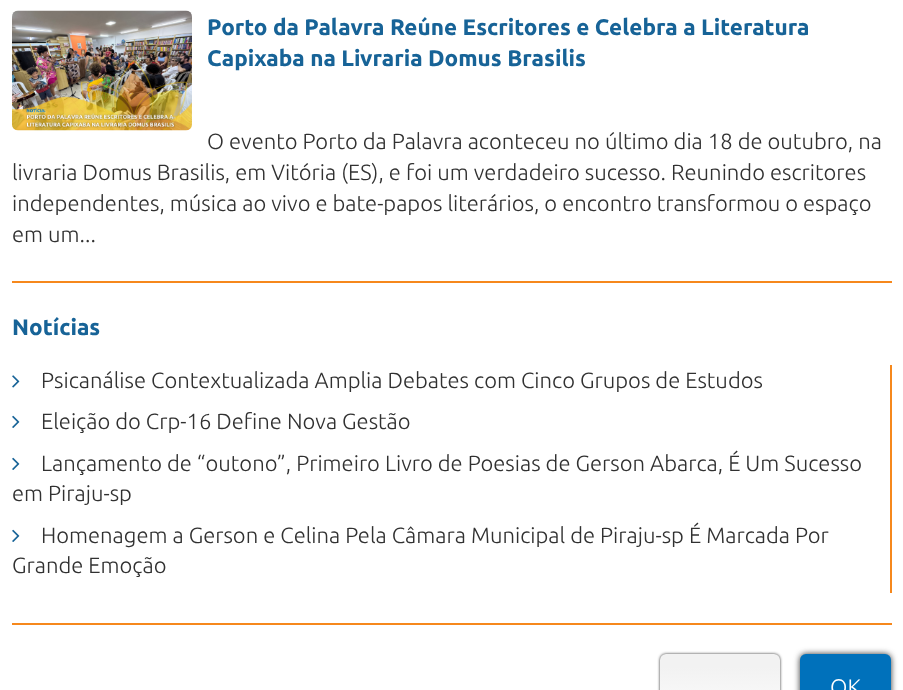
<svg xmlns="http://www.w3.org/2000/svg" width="903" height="690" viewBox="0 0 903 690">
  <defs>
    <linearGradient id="g1" gradientUnits="userSpaceOnUse" x1="720" y1="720" x2="720" y2="654"><stop offset="0.2" stop-color="rgb(250,250,250)"/><stop offset="0.8" stop-color="rgb(242,242,242)"/></linearGradient>
  </defs>
  <rect width="100%" height="100%" fill="rgb(255,255,255)"/>
  <image x="12" y="10" width="180" height="121" href="pic1.png"/>
  <g font-family="Ubuntu" font-size="22.5" font-weight="bold" fill="rgb(23,99,151)">
    <text>
      <tspan x="207" y="35">Porto da Palavra Reúne Escritores e Celebra a Literatura</tspan>
      <tspan x="207" y="66">Capixaba na Livraria Domus Brasilis</tspan>
    </text>
  </g>
  <g font-family="Ubuntu" font-size="22" font-weight="300" fill="rgb(49,49,49)">
    <text x="207" y="149">O evento Porto da Palavra aconteceu no último dia 18 de outubro, na</text>
    <text>
      <tspan x="12" y="180">livraria Domus Brasilis, em Vitória (ES), e foi um verdadeiro sucesso. Reunindo escritores</tspan>
      <tspan x="12" y="211">independentes, música ao vivo e bate-papos literários, o encontro transformou o espaço</tspan>
      <tspan x="12" y="242">em um...</tspan>
    </text>
  </g>
  <rect x="12" y="281" width="880" height="2" fill="rgb(246,136,28)"/>
  <text x="12" y="335" font-family="Ubuntu" font-size="22.5" font-weight="bold" fill="rgb(23,99,151)">Notícias</text>
  <rect x="890" y="365" width="2" height="228" fill="rgb(246,136,28)"/>
  <image x="12" y="375" width="8" height="13" href="pic2.png"/>
  <text x="41" y="388" font-family="Ubuntu" font-size="22" font-weight="300" fill="rgb(49,49,49)">Psicanálise Contextualizada Amplia Debates com Cinco Grupos de Estudos</text>
  <image x="12" y="415" width="8" height="13" href="pic3.png"/>
  <text x="41" y="429" font-family="Ubuntu" font-size="22" font-weight="300" fill="rgb(49,49,49)">Eleição do Crp-16 Define Nova Gestão</text>
  <image x="12" y="457" width="8" height="13" href="pic3.png"/>
  <g font-family="Ubuntu" font-size="22" font-weight="300" fill="rgb(49,49,49)">
    <text x="41" y="471">Lançamento de “outono”, Primeiro Livro de Poesias de Gerson Abarca, É Um Sucesso</text>
    <text x="12" y="501">em Piraju-sp</text>
  </g>
  <image x="12" y="529" width="8" height="13" href="pic3.png"/>
  <g font-family="Ubuntu" font-size="22" font-weight="300" fill="rgb(49,49,49)">
    <text x="41" y="543">Homenagem a Gerson e Celina Pela Câmara Municipal de Piraju-sp É Marcada Por</text>
    <text x="12" y="573">Grande Emoção</text>
  </g>
  <rect x="12" y="623" width="880" height="2" fill="rgb(246,136,28)"/>
  <rect x="660" y="654" width="120" height="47" rx="6" fill="rgb(49,49,49)" filter="blur(1.5px)"/>
  <rect x="660" y="654" width="120" height="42" rx="6" fill="url(#g1)"/>
  <rect x="800" y="654" width="91" height="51" rx="6" fill="rgb(49,49,49)" filter="blur(3px)"/>
  <rect x="800" y="654" width="91" height="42" rx="6" fill="rgb(0,113,187)"/>
  <text x="830" y="695" font-family="Ubuntu" font-size="22.5" font-weight="300" fill="rgb(255,255,255)">OK</text>
</svg>
